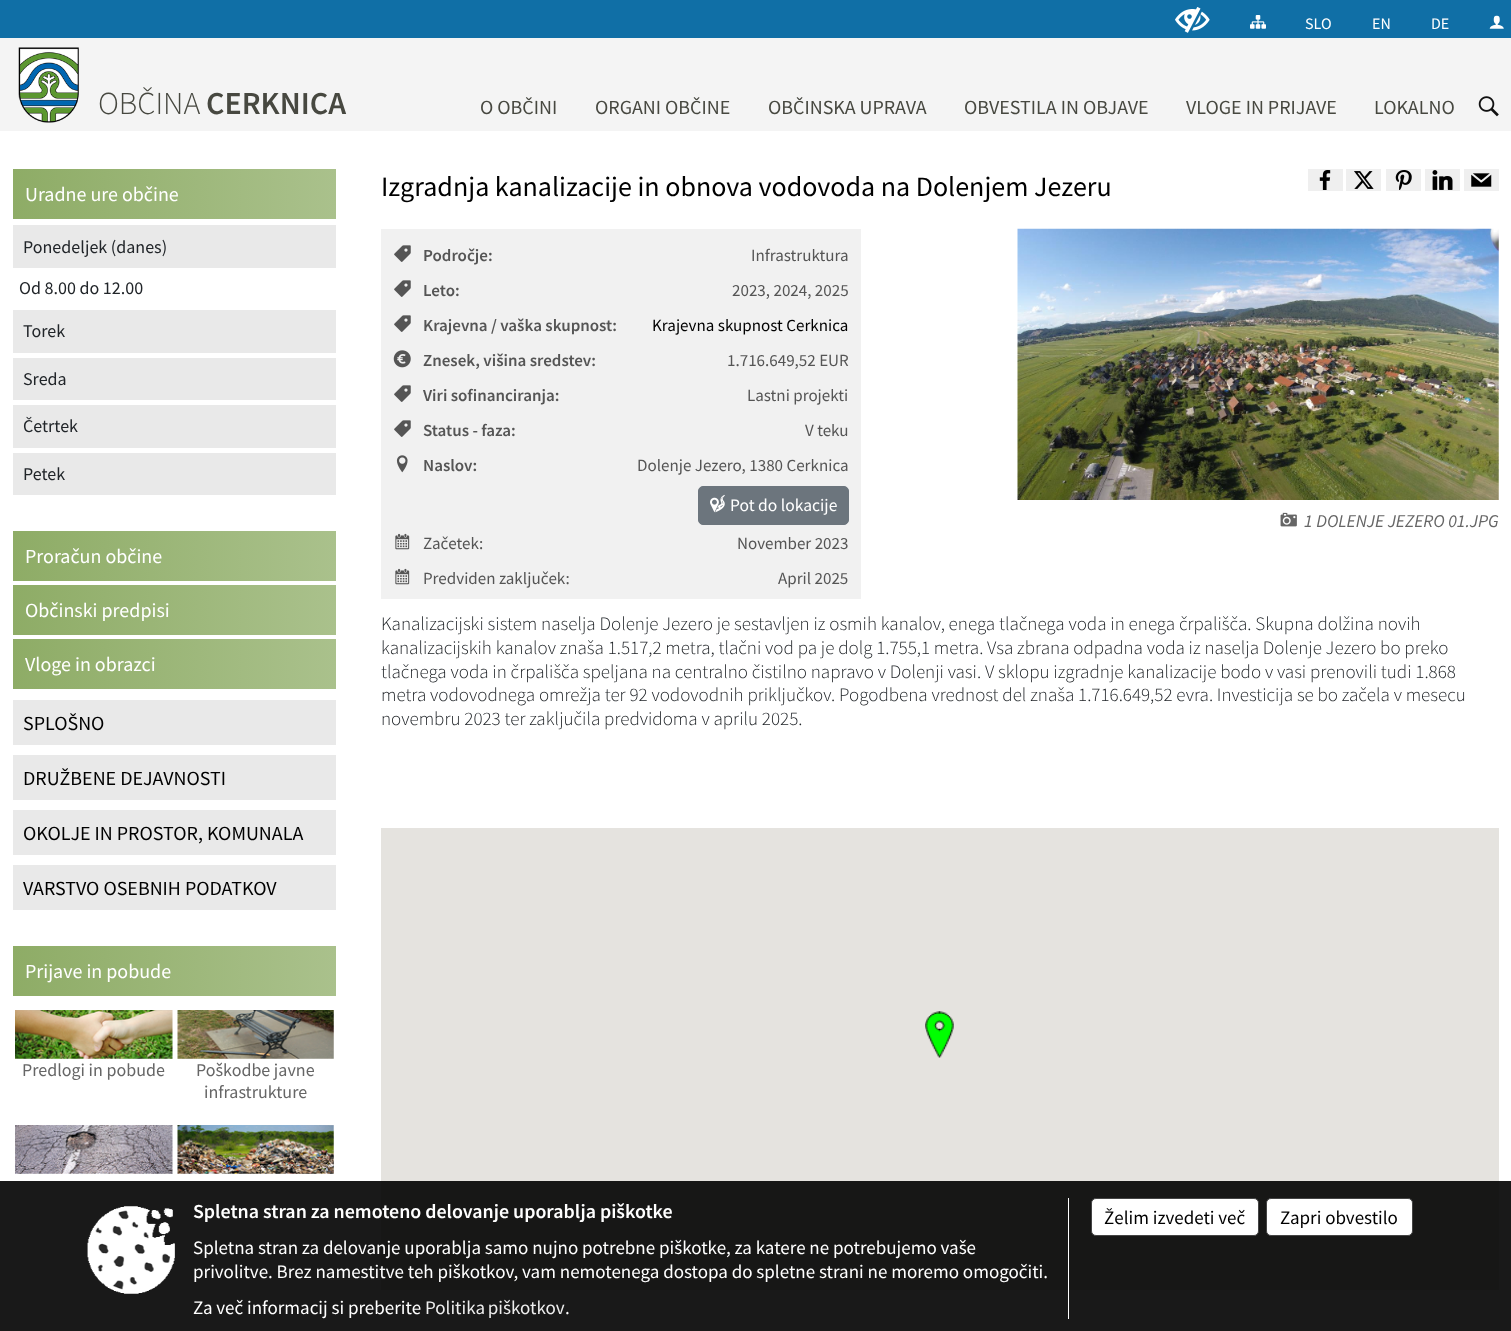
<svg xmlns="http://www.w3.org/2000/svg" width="1511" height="1331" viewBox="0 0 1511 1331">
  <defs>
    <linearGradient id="g1" gradientUnits="userSpaceOnUse" x1="13" y1="194" x2="336" y2="194"><stop offset="0" stop-color="rgb(142,172,102)"/><stop offset="1" stop-color="rgb(170,193,140)"/></linearGradient>
    <linearGradient id="g2" gradientUnits="userSpaceOnUse" x1="13" y1="556" x2="336" y2="556"><stop offset="0" stop-color="rgb(142,172,102)"/><stop offset="1" stop-color="rgb(170,193,140)"/></linearGradient>
    <linearGradient id="g3" gradientUnits="userSpaceOnUse" x1="13" y1="610" x2="336" y2="610"><stop offset="0" stop-color="rgb(142,172,102)"/><stop offset="1" stop-color="rgb(170,193,140)"/></linearGradient>
    <linearGradient id="g4" gradientUnits="userSpaceOnUse" x1="13" y1="664" x2="336" y2="664"><stop offset="0" stop-color="rgb(142,172,102)"/><stop offset="1" stop-color="rgb(170,193,140)"/></linearGradient>
    <linearGradient id="g5" gradientUnits="userSpaceOnUse" x1="13" y1="971" x2="336" y2="971"><stop offset="0" stop-color="rgb(142,172,102)"/><stop offset="1" stop-color="rgb(170,193,140)"/></linearGradient>
  </defs>
  <rect width="100%" height="100%" fill="rgb(255,255,255)"/>
  <rect x="0" y="38" width="1511" height="93" fill="rgb(244,244,244)"/>
  <rect x="0" y="0" width="1511" height="38" fill="rgb(16,111,166)"/>
  <image x="1175" y="7" width="35" height="26" href="pic1.png"/>
  <image x="1250" y="15" width="16" height="14" href="pic2.png"/>
  <g font-family="Source Sans Pro" font-size="16" fill="rgb(255,255,255)">
    <text x="1305" y="29">SLO</text>
    <text x="1372" y="29">EN</text>
    <text x="1431" y="29">DE</text>
  </g>
  <image x="1489" y="15" width="15" height="14" href="pic3.png"/>
  <image x="18" y="47" width="61" height="76" href="pic4.png"/>
  <text x="98" y="114" font-family="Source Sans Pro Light" font-size="32" font-weight="300" fill="rgb(71,72,64)">OBČINA</text>
  <text x="206" y="114" font-family="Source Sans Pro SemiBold" font-size="32" font-weight="600" fill="rgb(71,72,64)">CERKNICA</text>
  <g font-family="Source Sans Pro" font-size="20" fill="rgb(71,72,64)">
    <text x="480" y="114">O OBČINI</text>
    <text x="595" y="114">ORGANI OBČINE</text>
    <text x="768" y="114">OBČINSKA UPRAVA</text>
    <text x="964" y="114">OBVESTILA IN OBJAVE</text>
    <text x="1186" y="114">VLOGE IN PRIJAVE</text>
    <text x="1374" y="114">LOKALNO</text>
  </g>
  <image x="1478" y="96" width="21" height="21" href="pic5.png"/>
  <rect x="13" y="169" width="323" height="50" fill="url(#g1)"/>
  <text x="25" y="201" font-family="Source Sans Pro" font-size="20" fill="rgb(255,255,255)">Uradne ure občine</text>
  <rect x="13" y="225" width="323" height="43" fill="rgb(233,233,233)"/>
  <g font-family="Source Sans Pro" font-size="18" fill="rgb(33,37,41)">
    <text x="23" y="253">Ponedeljek (danes)</text>
    <text x="19" y="294">Od 8.00 do 12.00</text>
  </g>
  <rect x="13" y="310" width="323" height="43" fill="rgb(233,233,233)"/>
  <text x="23" y="337" font-family="Source Sans Pro" font-size="18" fill="rgb(33,37,41)">Torek</text>
  <rect x="13" y="358" width="323" height="42" fill="rgb(233,233,233)"/>
  <text x="23" y="385" font-family="Source Sans Pro" font-size="18" fill="rgb(33,37,41)">Sreda</text>
  <rect x="13" y="405" width="323" height="43" fill="rgb(233,233,233)"/>
  <text x="23" y="432" font-family="Source Sans Pro" font-size="18" fill="rgb(33,37,41)">Četrtek</text>
  <rect x="13" y="453" width="323" height="42" fill="rgb(233,233,233)"/>
  <text x="23" y="480" font-family="Source Sans Pro" font-size="18" fill="rgb(33,37,41)">Petek</text>
  <rect x="13" y="531" width="323" height="50" fill="url(#g2)"/>
  <text x="25" y="563" font-family="Source Sans Pro" font-size="20" fill="rgb(255,255,255)">Proračun občine</text>
  <rect x="13" y="585" width="323" height="50" fill="url(#g3)"/>
  <text x="25" y="617" font-family="Source Sans Pro" font-size="20" fill="rgb(255,255,255)">Občinski predpisi</text>
  <rect x="13" y="639" width="323" height="50" fill="url(#g4)"/>
  <text x="25" y="671" font-family="Source Sans Pro" font-size="20" fill="rgb(255,255,255)">Vloge in obrazci</text>
  <rect x="13" y="700" width="323" height="45" fill="rgb(233,233,233)"/>
  <text x="23" y="730" font-family="Source Sans Pro" font-size="20" fill="rgb(0,0,0)">SPLOŠNO</text>
  <rect x="13" y="755" width="323" height="45" fill="rgb(233,233,233)"/>
  <text x="23" y="785" font-family="Source Sans Pro" font-size="20" fill="rgb(0,0,0)">DRUŽBENE DEJAVNOSTI</text>
  <rect x="13" y="810" width="323" height="45" fill="rgb(233,233,233)"/>
  <text x="23" y="840" font-family="Source Sans Pro" font-size="20" fill="rgb(0,0,0)">OKOLJE IN PROSTOR, KOMUNALA</text>
  <rect x="13" y="865" width="323" height="45" fill="rgb(233,233,233)"/>
  <text x="23" y="895" font-family="Source Sans Pro" font-size="20" fill="rgb(0,0,0)">VARSTVO OSEBNIH PODATKOV</text>
  <rect x="13" y="946" width="323" height="50" fill="url(#g5)"/>
  <text x="25" y="978" font-family="Source Sans Pro" font-size="20" fill="rgb(255,255,255)">Prijave in pobude</text>
  <image x="15" y="1010" width="158" height="49" href="pic6.png"/>
  <text x="22" y="1076" font-family="Source Sans Pro" font-size="18" fill="rgb(102,102,102)">Predlogi in pobude</text>
  <image x="177" y="1010" width="157" height="49" href="pic7.png"/>
  <g font-family="Source Sans Pro" font-size="18" fill="rgb(102,102,102)">
    <text x="196" y="1076">Poškodbe javne</text>
    <text x="204" y="1098">infrastrukture</text>
  </g>
  <image x="15" y="1125" width="158" height="49" href="pic8.png"/>
  <image x="177" y="1125" width="157" height="49" href="pic9.png"/>
  <text x="381" y="196" font-family="Source Sans Pro" font-size="28" fill="rgb(0,0,0)">Izgradnja kanalizacije in obnova vodovoda na Dolenjem Jezeru</text>
  <rect x="1308" y="169" width="35" height="22" fill="rgb(239,239,239)"/>
  <image x="1319" y="170" width="12" height="20" href="pic10.png"/>
  <rect x="1346" y="169" width="35" height="22" fill="rgb(239,239,239)"/>
  <image x="1354" y="171" width="20" height="18" href="pic11.png"/>
  <rect x="1386" y="169" width="35" height="22" fill="rgb(239,239,239)"/>
  <image x="1395" y="170" width="17" height="20" href="pic12.png"/>
  <rect x="1425" y="169" width="35" height="22" fill="rgb(239,239,239)"/>
  <image x="1432" y="170" width="21" height="20" href="pic13.png"/>
  <rect x="1464" y="169" width="35" height="22" fill="rgb(239,239,239)"/>
  <image x="1471" y="173" width="21" height="14" href="pic14.png"/>
  <rect x="381" y="229" width="480" height="370" fill="rgb(241,241,241)"/>
  <image x="394" y="245" width="17" height="17" href="pic15.png"/>
  <text x="423" y="261" font-family="Source Sans Pro SemiBold" font-size="17" font-weight="600" fill="rgb(85,85,85)">Področje:</text>
  <text x="751" y="261" font-family="Source Sans Pro" font-size="17" fill="rgb(85,85,85)">Infrastruktura</text>
  <image x="394" y="280" width="17" height="17" href="pic15.png"/>
  <text x="423" y="296" font-family="Source Sans Pro SemiBold" font-size="17" font-weight="600" fill="rgb(85,85,85)">Leto:</text>
  <text x="732" y="296" font-family="Source Sans Pro" font-size="17" fill="rgb(85,85,85)">2023, 2024, 2025</text>
  <image x="394" y="315" width="17" height="17" href="pic15.png"/>
  <text x="423" y="331" font-family="Source Sans Pro SemiBold" font-size="17" font-weight="600" fill="rgb(85,85,85)">Krajevna / vaška skupnost:</text>
  <text x="652" y="331" font-family="Source Sans Pro" font-size="17" fill="rgb(0,0,0)">Krajevna skupnost Cerknica</text>
  <image x="393" y="350" width="18" height="18" href="pic16.png"/>
  <text x="423" y="366" font-family="Source Sans Pro SemiBold" font-size="17" font-weight="600" fill="rgb(85,85,85)">Znesek, višina sredstev:</text>
  <text x="727" y="366" font-family="Source Sans Pro" font-size="17" fill="rgb(85,85,85)">1.716.649,52 EUR</text>
  <image x="394" y="385" width="17" height="17" href="pic15.png"/>
  <text x="423" y="401" font-family="Source Sans Pro SemiBold" font-size="17" font-weight="600" fill="rgb(85,85,85)">Viri sofinanciranja:</text>
  <text x="747" y="401" font-family="Source Sans Pro" font-size="17" fill="rgb(85,85,85)">Lastni projekti</text>
  <image x="394" y="420" width="17" height="17" href="pic15.png"/>
  <text x="423" y="436" font-family="Source Sans Pro SemiBold" font-size="17" font-weight="600" fill="rgb(85,85,85)">Status - faza:</text>
  <text x="805" y="436" font-family="Source Sans Pro" font-size="17" fill="rgb(85,85,85)">V teku</text>
  <image x="396" y="455" width="12" height="18" href="pic17.png"/>
  <text x="423" y="471" font-family="Source Sans Pro SemiBold" font-size="17" font-weight="600" fill="rgb(85,85,85)">Naslov:</text>
  <text x="637" y="471" font-family="Source Sans Pro" font-size="17" fill="rgb(85,85,85)">Dolenje Jezero, 1380 Cerknica</text>
  <rect x="698.5" y="486.5" width="150" height="38" rx="4.5" fill="rgb(108,117,125)" stroke="rgb(108,117,125)"/>
  <image x="710" y="494" width="15" height="19" href="pic18.png"/>
  <text x="730" y="511" font-family="Source Sans Pro" font-size="17.5" fill="rgb(255,255,255)">Pot do lokacije</text>
  <image x="395" y="533" width="15" height="17" href="pic19.png"/>
  <g font-family="Source Sans Pro" font-size="17" fill="rgb(85,85,85)">
    <text x="423" y="549">Začetek:</text>
    <text x="737" y="549">November 2023</text>
  </g>
  <image x="395" y="568" width="15" height="17" href="pic19.png"/>
  <g font-family="Source Sans Pro" font-size="17" fill="rgb(85,85,85)">
    <text x="423" y="584">Predviden zaključek:</text>
    <text x="778" y="584">April 2025</text>
  </g>
  <image x="1017" y="228" width="482" height="272" href="pic20.png"/>
  <image x="1280" y="512" width="17" height="15" href="pic21.png"/>
  <text x="1304" y="527" font-family="Source Sans Pro" font-size="18" font-style="italic" fill="rgb(102,102,102)">1 DOLENJE JEZERO 01.JPG</text>
  <g font-family="Source Sans Pro Light" font-size="19" font-weight="300" fill="rgb(33,37,41)">
    <text>
      <tspan x="381" y="630">Kanalizacijski sistem naselja Dolenje Jezero je sestavljen iz osmih kanalov, enega tlačnega voda in enega črpališča. Skupna dolžina novih</tspan>
      <tspan x="381" y="654">kanalizacijskih kanalov znaša 1.517,2 metra, tlačni vod pa je dolg 1.755,1 metra. Vsa zbrana odpadna voda iz naselja Dolenje Jezero bo preko</tspan>
      <tspan x="381" y="678">tlačnega voda in črpališča speljana na centralno čistilno napravo v Dolenji vasi. V sklopu izgradnje kanalizacije bodo v vasi prenovili tudi 1.868</tspan>
      <tspan x="381" y="701">metra vodovodnega omrežja ter 92 vodovodnih priključkov. Pogodbena vrednost del znaša 1.716.649,52 evra. Investicija se bo začela v mesecu</tspan>
      <tspan x="381" y="725">novembru 2023 ter zaključila predvidoma v aprilu 2025.</tspan>
    </text>
  </g>
  <rect x="381" y="828" width="1118" height="462" fill="rgb(229,227,223)"/>
  <image x="925" y="1011" width="29" height="47" href="pic22.png"/>
  <rect x="0" y="1181" width="1511" height="150" fill="rgba(0,0,0,0.9)"/>
  <image x="87" y="1206" width="88" height="88" href="pic23.png"/>
  <rect x="1068" y="1198" width="1" height="121" fill="rgb(255,255,255)"/>
  <text x="193" y="1218" font-family="Source Sans Pro SemiBold" font-size="19.95" font-weight="600" fill="rgb(255,255,255)">Spletna stran za nemoteno delovanje uporablja piškotke</text>
  <g font-family="Source Sans Pro" font-size="19" fill="rgb(255,255,255)">
    <text>
      <tspan x="193" y="1254">Spletna stran za delovanje uporablja samo nujno potrebne piškotke, za katere ne potrebujemo vaše</tspan>
      <tspan x="193" y="1278">privolitve. Brez namestitve teh piškotkov, vam nemotenega dostopa do spletne strani ne moremo omogočiti.</tspan>
      <tspan x="193" y="1314">Za več informacij si preberite</tspan>
    </text>
  </g>
  <text x="425" y="1314" word-spacing="-1" font-family="Source Sans Pro" font-size="19" fill="rgb(238,238,238)">Politika piškotkov</text>
  <text x="565" y="1314" font-family="Source Sans Pro" font-size="19" fill="rgb(255,255,255)">.</text>
  <rect x="1091.5" y="1198.5" width="167" height="37" rx="4.5" fill="rgb(255,255,255)" stroke="rgb(68,68,68)"/>
  <text x="1104" y="1224" font-family="Source Sans Pro" font-size="19" fill="rgb(0,0,0)">Želim izvedeti več</text>
  <rect x="1266.5" y="1198.5" width="146" height="37" rx="4.5" fill="rgb(255,255,255)" stroke="rgb(68,68,68)"/>
  <text x="1280" y="1224" font-family="Source Sans Pro" font-size="19" fill="rgb(0,0,0)">Zapri obvestilo</text>
</svg>
